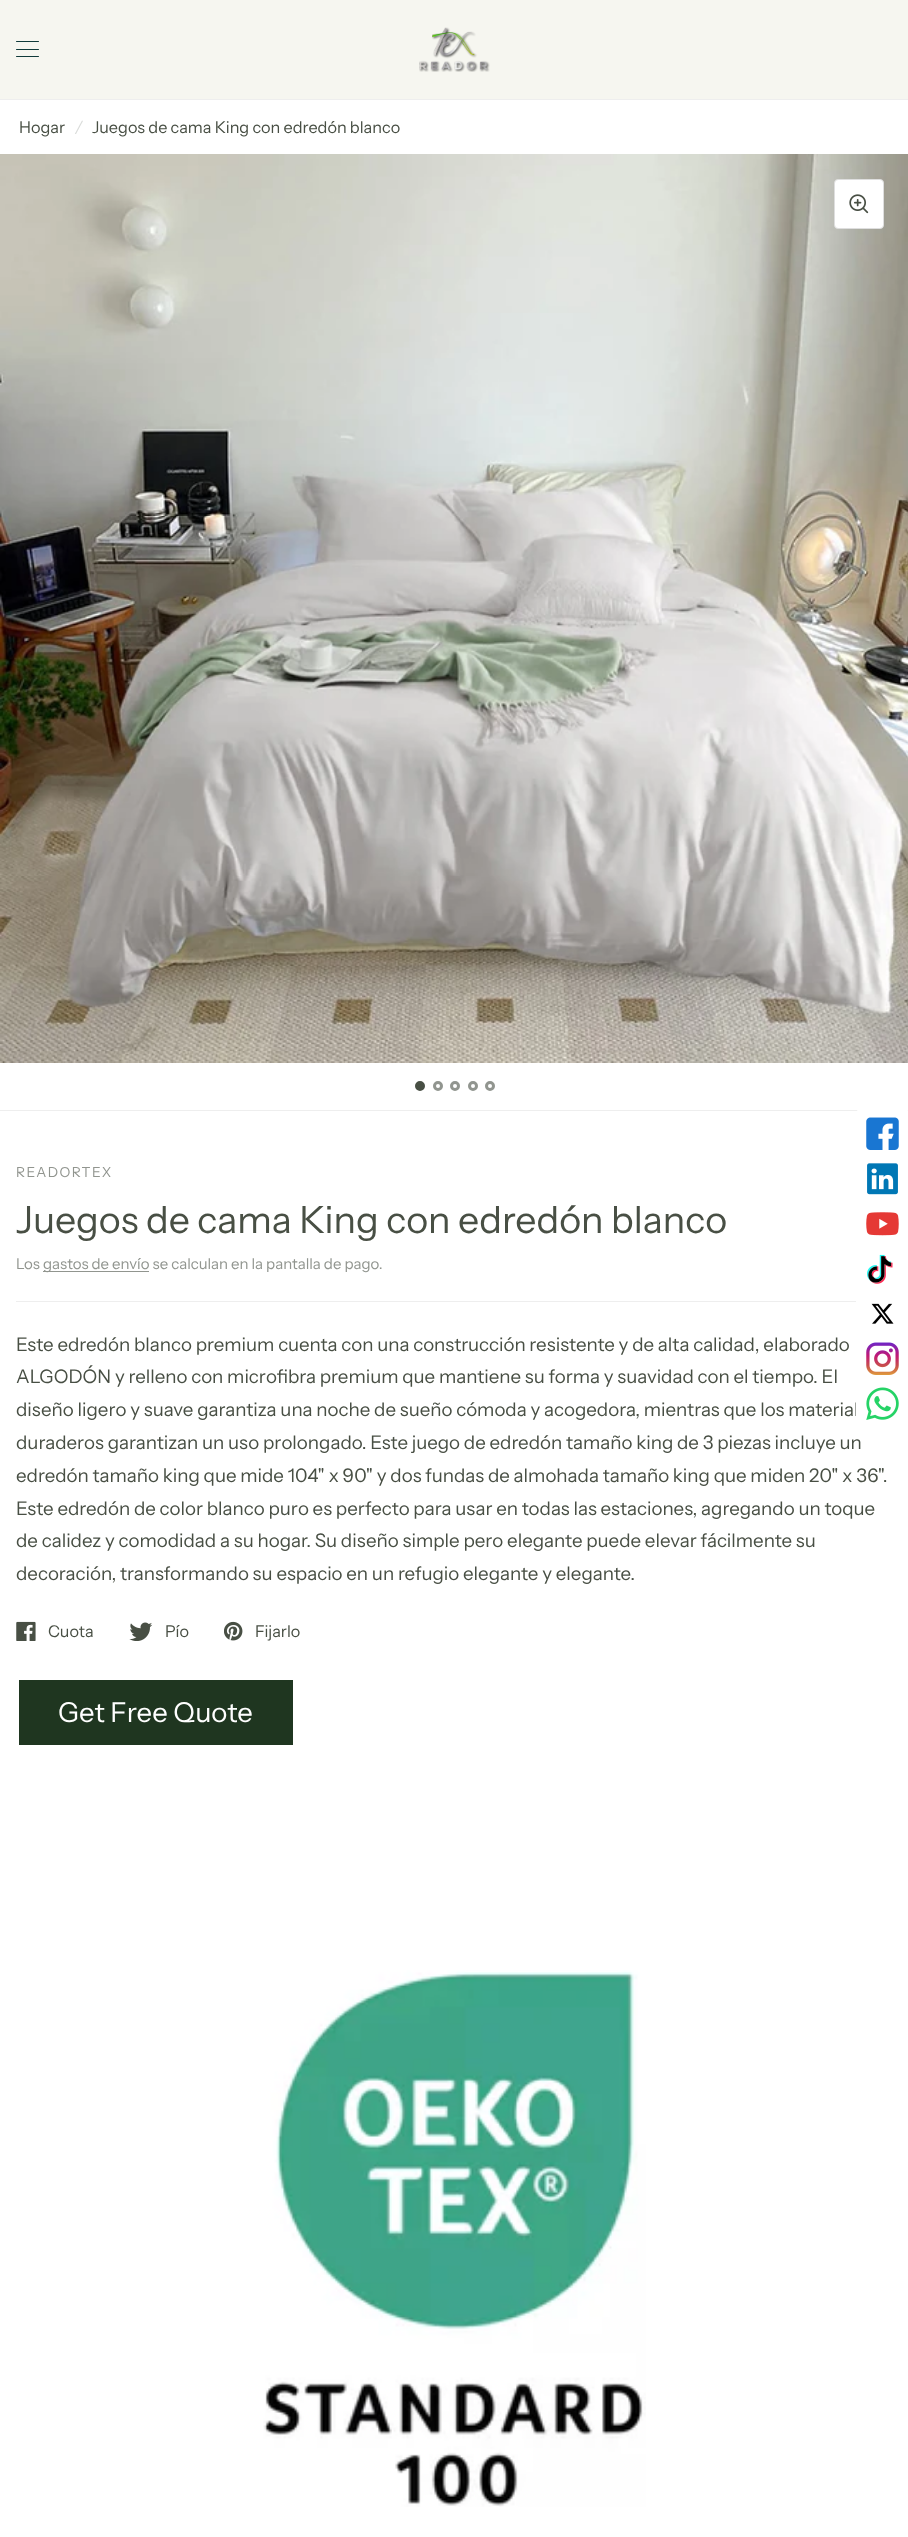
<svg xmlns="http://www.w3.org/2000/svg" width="908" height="2537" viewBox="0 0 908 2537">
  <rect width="100%" height="100%" fill="rgb(255,255,255)"/>
  <rect x="0" y="0" width="908" height="99" fill="rgb(246,246,240)"/>
  <rect x="0" y="99" width="908" height="1" fill="rgb(238,238,238)"/>
  <rect x="16" y="41" width="23" height="1" rx="0.5" fill="rgb(16,58,58)"/>
  <rect x="16" y="49" width="23" height="1" rx="0.5" fill="rgb(16,58,58)"/>
  <rect x="16" y="56" width="23" height="1" rx="0.5" fill="rgb(16,58,58)"/>
  <image x="419" y="27" width="71" height="45" href="pic1.png"/>
  <text x="19" y="133" font-family="Instrument Sans" font-size="16.25" fill="rgb(72,79,68)">Hogar</text>
  <text x="75" y="133" font-family="Instrument Sans" font-size="16.25" font-style="italic" fill="rgb(218,220,218)">/</text>
  <text x="92" y="133" font-family="Instrument Sans" font-size="16.25" fill="rgb(72,79,68)">Juegos de cama King con edredón blanco</text>
  <image x="0" y="154" width="908" height="909" href="pic2.png"/>
  <rect x="834.5" y="179.5" width="49" height="49" rx="3.5" fill="rgb(255,255,255)" stroke="rgb(222,222,222)"/>
  <image x="849" y="194" width="20" height="20" href="pic3.png"/>
  <rect x="0" y="1110" width="908" height="1" fill="rgb(238,238,238)"/>
  <circle cx="420" cy="1086" r="3.5" fill="rgb(72,79,68)" stroke="rgb(72,79,68)" stroke-width="3"/>
  <circle cx="438" cy="1086" r="3.5" fill="none" stroke="rgb(145,149,143)" stroke-width="3"/>
  <circle cx="455" cy="1086" r="3.5" fill="none" stroke="rgb(145,149,143)" stroke-width="3"/>
  <circle cx="473" cy="1086" r="3.5" fill="none" stroke="rgb(145,149,143)" stroke-width="3"/>
  <circle cx="490" cy="1086" r="3.5" fill="none" stroke="rgb(145,149,143)" stroke-width="3"/>
  <text x="16" y="1177" font-family="Instrument Sans" font-size="13.75" letter-spacing="1.4" fill="rgb(145,149,143)">READORTEX</text>
  <rect x="16" y="1301" width="840" height="1" fill="rgb(238,238,238)"/>
  <text x="16" y="1233" font-family="Instrument Sans" font-size="37.5" fill="rgb(72,79,68)">Juegos de cama King con edredón blanco</text>
  <text x="16" y="1269" font-family="Instrument Sans" font-size="15" fill="rgb(145,149,143)">Los</text>
  <rect x="43" y="1271" width="106" height="1" fill="rgb(145,149,143)"/>
  <text x="43" y="1269" font-family="Instrument Sans" font-size="15" fill="rgb(145,149,143)">gastos de envío se calculan en la pantalla de pago.</text>
  <g font-family="Instrument Sans" font-size="18.75" fill="rgb(72,79,68)">
    <text>
      <tspan x="16" y="1351">Este edredón blanco premium cuenta con una construcción resistente y de alta calidad, elaborado</tspan>
      <tspan x="16" y="1383">ALGODÓN y relleno con microfibra premium que mantiene su forma y suavidad con el tiempo. El</tspan>
      <tspan x="16" y="1416">diseño ligero y suave garantiza una noche de sueño cómoda y acogedora, mientras que los material</tspan>
      <tspan x="16" y="1449">duraderos garantizan un uso prolongado. Este juego de edredón tamaño king de 3 piezas incluye un</tspan>
      <tspan x="16" y="1482">edredón tamaño king que mide 104" x 90" y dos fundas de almohada tamaño king que miden 20" x 36".</tspan>
      <tspan x="16" y="1515">Este edredón de color blanco puro es perfecto para usar en todas las estaciones, agregando un toque</tspan>
      <tspan x="16" y="1547">de calidez y comodidad a su hogar. Su diseño simple pero elegante puede elevar fácilmente su</tspan>
      <tspan x="16" y="1580">decoración, transformando su espacio en un refugio elegante y elegante.</tspan>
    </text>
  </g>
  <image x="16" y="1621" width="20" height="20" href="pic4.png"/>
  <text x="48" y="1637" font-family="Instrument Sans" font-size="16.25" fill="rgb(72,79,68)">Cuota</text>
  <image x="129" y="1622" width="24" height="19" href="pic5.png"/>
  <text x="165" y="1637" font-family="Instrument Sans" font-size="16.25" fill="rgb(72,79,68)">Pío</text>
  <image x="224" y="1621" width="19" height="20" href="pic6.png"/>
  <text x="255" y="1637" font-family="Instrument Sans" font-size="16.25" fill="rgb(72,79,68)">Fijarlo</text>
  <rect x="19" y="1680" width="274" height="65" fill="rgb(31,54,32)"/>
  <text x="58" y="1722" font-family="Instrument Sans" font-size="27.5" fill="rgb(255,255,255)">Get Free Quote</text>
  <image x="263" y="1970" width="383" height="537" href="pic7.png"/>
  <rect x="856" y="1108" width="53" height="322" rx="6" fill="rgb(255,255,255)"/>
  <image x="866" y="1117" width="33" height="33" href="pic8.png"/>
  <image x="867" y="1163" width="31" height="32" href="pic9.png"/>
  <image x="866" y="1212" width="33" height="24" href="pic10.png"/>
  <image x="867" y="1254" width="26" height="30" href="pic11.png"/>
  <image x="871" y="1303" width="23" height="21" href="pic12.png"/>
  <image x="866" y="1342" width="33" height="33" href="pic13.png"/>
  <image x="866" y="1387" width="33" height="33" href="pic14.png"/>
</svg>
